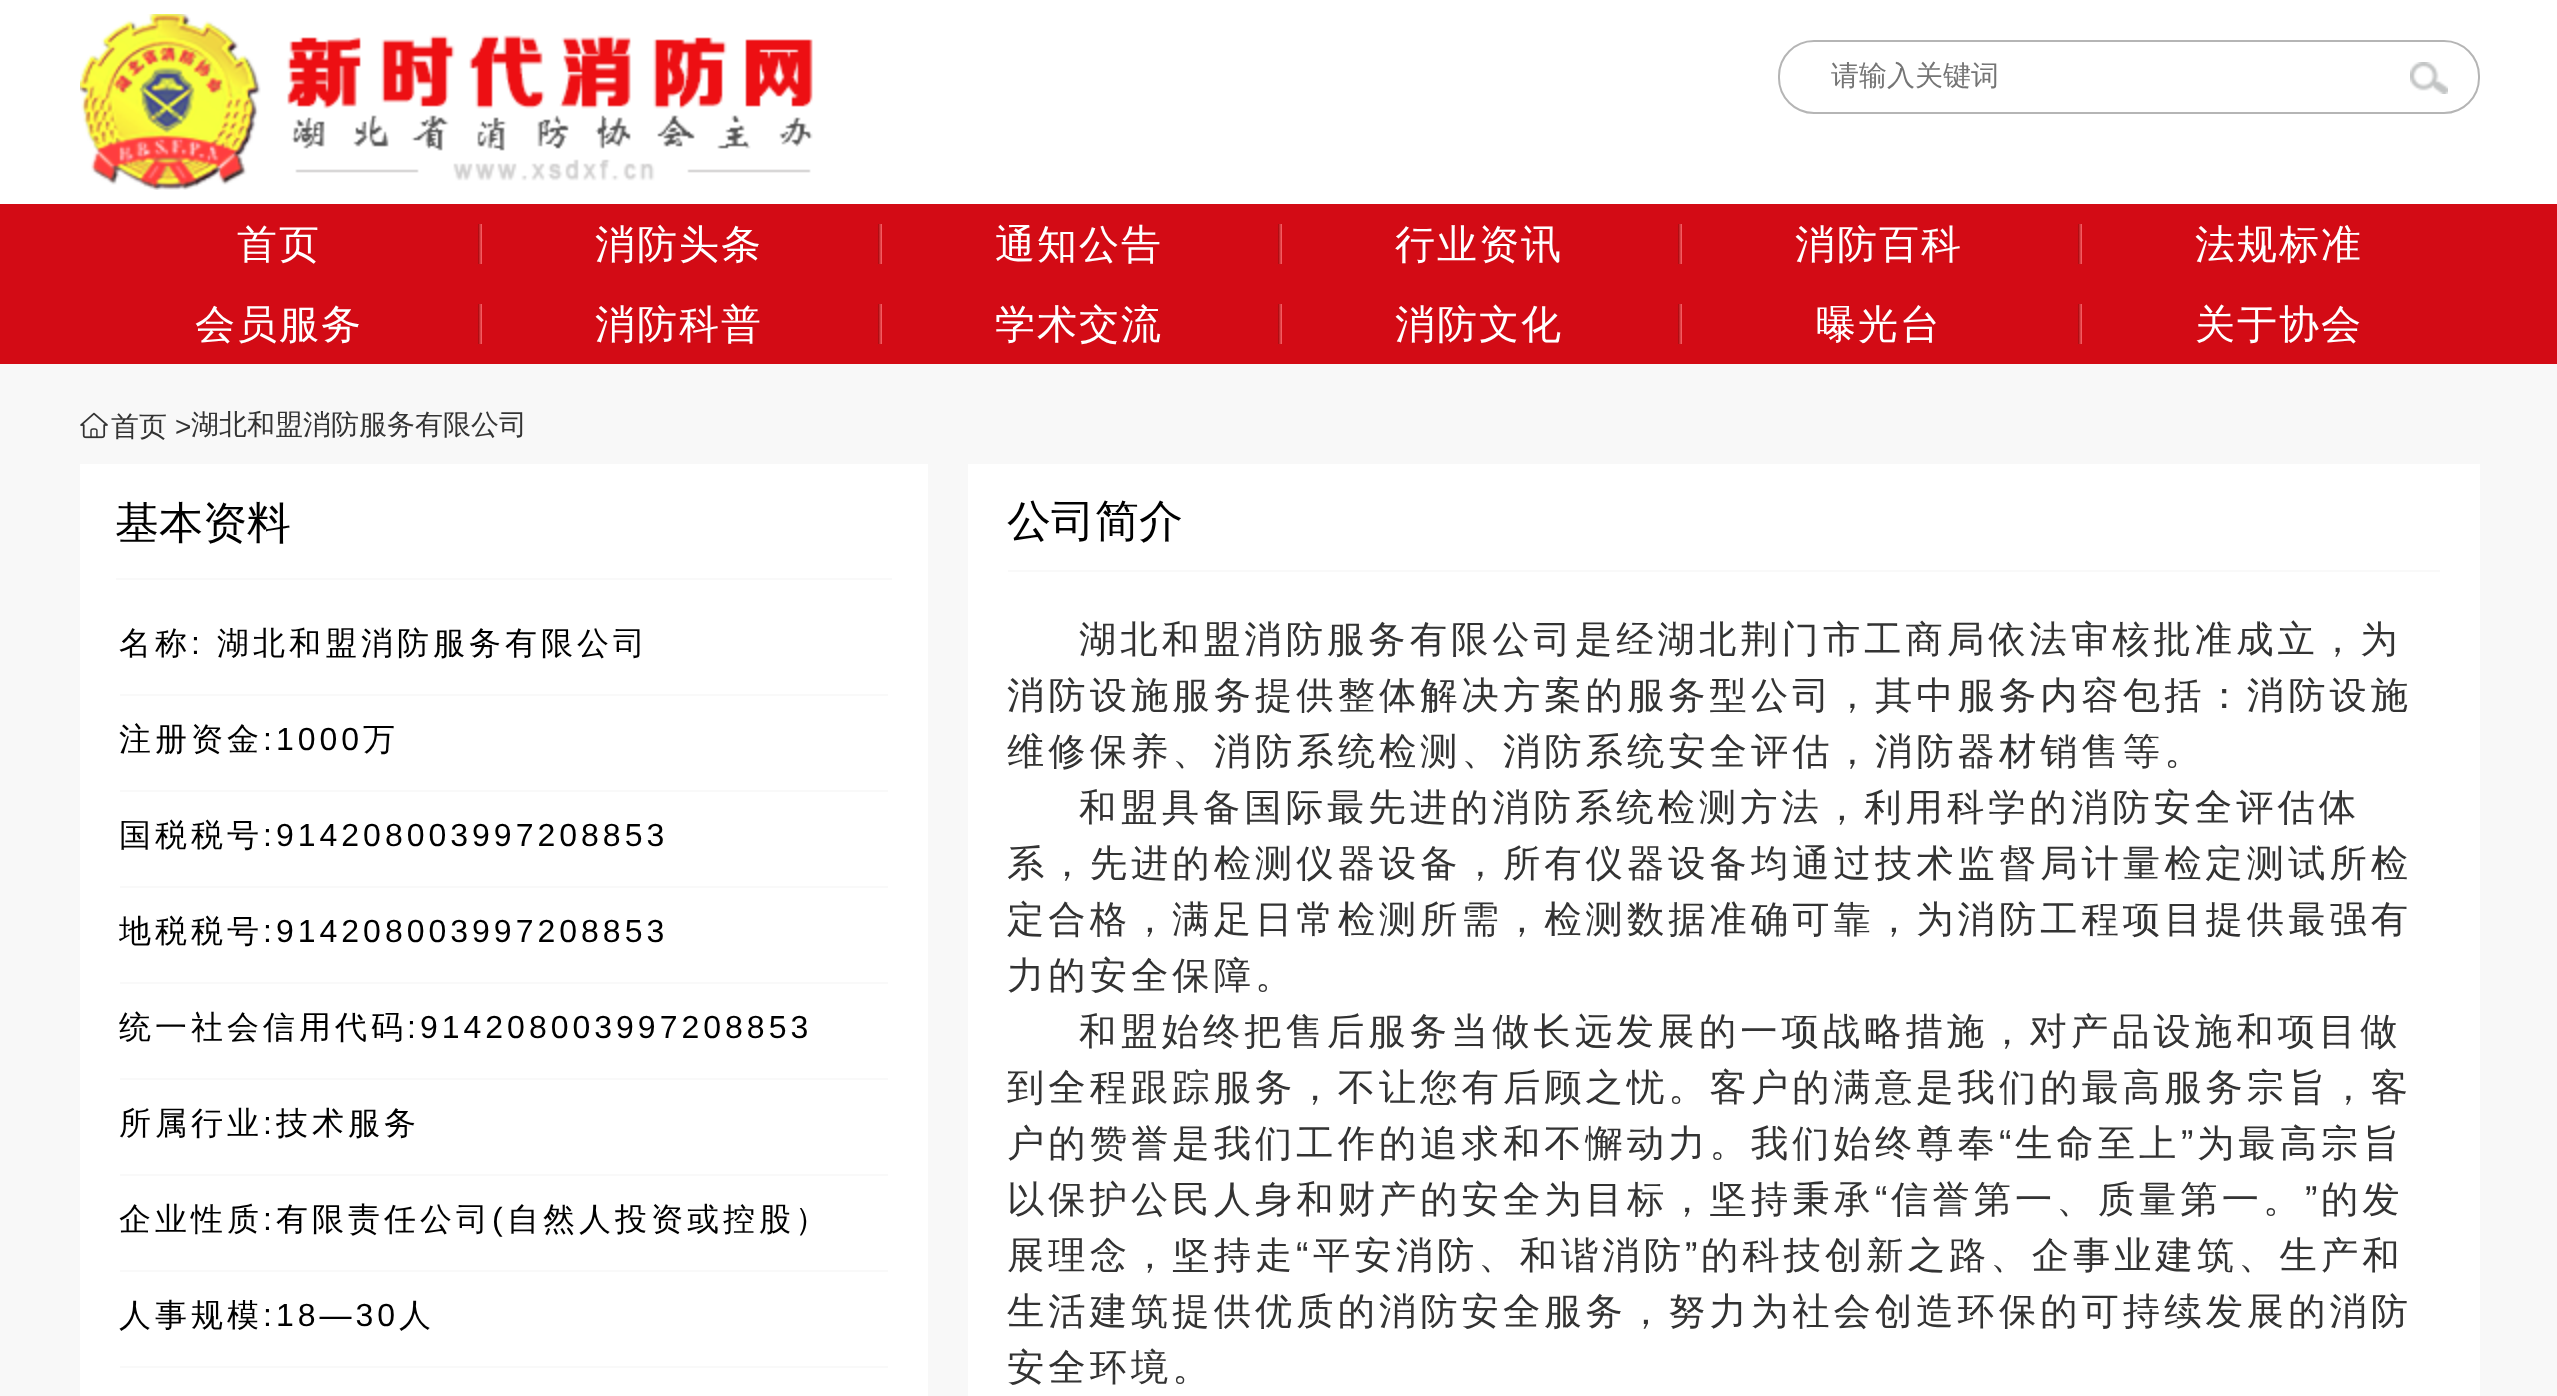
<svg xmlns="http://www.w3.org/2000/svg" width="2557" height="1396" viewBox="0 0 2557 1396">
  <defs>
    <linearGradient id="g1" gradientUnits="userSpaceOnUse" x1="478" y1="244" x2="482" y2="244"><stop offset="0" stop-color="rgb(164,1,6)"/><stop offset="1" stop-color="rgb(255,104,109)"/></linearGradient>
    <linearGradient id="g2" gradientUnits="userSpaceOnUse" x1="878" y1="244" x2="882" y2="244"><stop offset="0" stop-color="rgb(164,1,6)"/><stop offset="1" stop-color="rgb(255,104,109)"/></linearGradient>
    <linearGradient id="g3" gradientUnits="userSpaceOnUse" x1="1278" y1="244" x2="1282" y2="244"><stop offset="0" stop-color="rgb(164,1,6)"/><stop offset="1" stop-color="rgb(255,104,109)"/></linearGradient>
    <linearGradient id="g4" gradientUnits="userSpaceOnUse" x1="1678" y1="244" x2="1682" y2="244"><stop offset="0" stop-color="rgb(164,1,6)"/><stop offset="1" stop-color="rgb(255,104,109)"/></linearGradient>
    <linearGradient id="g5" gradientUnits="userSpaceOnUse" x1="2078" y1="244" x2="2082" y2="244"><stop offset="0" stop-color="rgb(164,1,6)"/><stop offset="1" stop-color="rgb(255,104,109)"/></linearGradient>
    <linearGradient id="g6" gradientUnits="userSpaceOnUse" x1="478" y1="324" x2="482" y2="324"><stop offset="0" stop-color="rgb(164,1,6)"/><stop offset="1" stop-color="rgb(255,104,109)"/></linearGradient>
    <linearGradient id="g7" gradientUnits="userSpaceOnUse" x1="878" y1="324" x2="882" y2="324"><stop offset="0" stop-color="rgb(164,1,6)"/><stop offset="1" stop-color="rgb(255,104,109)"/></linearGradient>
    <linearGradient id="g8" gradientUnits="userSpaceOnUse" x1="1278" y1="324" x2="1282" y2="324"><stop offset="0" stop-color="rgb(164,1,6)"/><stop offset="1" stop-color="rgb(255,104,109)"/></linearGradient>
    <linearGradient id="g9" gradientUnits="userSpaceOnUse" x1="1678" y1="324" x2="1682" y2="324"><stop offset="0" stop-color="rgb(164,1,6)"/><stop offset="1" stop-color="rgb(255,104,109)"/></linearGradient>
    <linearGradient id="g10" gradientUnits="userSpaceOnUse" x1="2078" y1="324" x2="2082" y2="324"><stop offset="0" stop-color="rgb(164,1,6)"/><stop offset="1" stop-color="rgb(255,104,109)"/></linearGradient>
  </defs>
  <rect width="100%" height="100%" fill="rgb(255,255,255)"/>
  <image x="80" y="14" width="733" height="176" href="pic1.png"/>
  <rect x="1779" y="41" width="700" height="72" rx="35" fill="none" stroke="rgb(181,181,181)" stroke-width="2"/>
  <text x="1831" y="85" font-family="WenQuanYi Zen Hei" font-size="28" font-weight="500" fill="rgb(117,117,117)">请输入关键词</text>
  <image x="2410" y="62" width="38" height="32" href="pic2.png"/>
  <rect x="0" y="204" width="2557" height="160" fill="rgb(211,11,21)"/>
  <text x="237" y="258" font-family="WenQuanYi Zen Hei" font-size="40" font-weight="500" letter-spacing="2" fill="rgb(255,255,255)">首页</text>
  <rect x="478" y="224" width="4" height="40" fill="url(#g1)"/>
  <text x="595" y="258" font-family="WenQuanYi Zen Hei" font-size="40" font-weight="500" letter-spacing="2" fill="rgb(255,255,255)">消防头条</text>
  <rect x="878" y="224" width="4" height="40" fill="url(#g2)"/>
  <text x="995" y="258" font-family="WenQuanYi Zen Hei" font-size="40" font-weight="500" letter-spacing="2" fill="rgb(255,255,255)">通知公告</text>
  <rect x="1278" y="224" width="4" height="40" fill="url(#g3)"/>
  <text x="1395" y="258" font-family="WenQuanYi Zen Hei" font-size="40" font-weight="500" letter-spacing="2" fill="rgb(255,255,255)">行业资讯</text>
  <rect x="1678" y="224" width="4" height="40" fill="url(#g4)"/>
  <text x="1795" y="258" font-family="WenQuanYi Zen Hei" font-size="40" font-weight="500" letter-spacing="2" fill="rgb(255,255,255)">消防百科</text>
  <rect x="2078" y="224" width="4" height="40" fill="url(#g5)"/>
  <g font-family="WenQuanYi Zen Hei" font-size="40" font-weight="500" letter-spacing="2" fill="rgb(255,255,255)">
    <text x="2195" y="258">法规标准</text>
    <text x="195" y="338">会员服务</text>
  </g>
  <rect x="478" y="304" width="4" height="40" fill="url(#g6)"/>
  <text x="595" y="338" font-family="WenQuanYi Zen Hei" font-size="40" font-weight="500" letter-spacing="2" fill="rgb(255,255,255)">消防科普</text>
  <rect x="878" y="304" width="4" height="40" fill="url(#g7)"/>
  <text x="995" y="338" font-family="WenQuanYi Zen Hei" font-size="40" font-weight="500" letter-spacing="2" fill="rgb(255,255,255)">学术交流</text>
  <rect x="1278" y="304" width="4" height="40" fill="url(#g8)"/>
  <text x="1395" y="338" font-family="WenQuanYi Zen Hei" font-size="40" font-weight="500" letter-spacing="2" fill="rgb(255,255,255)">消防文化</text>
  <rect x="1678" y="304" width="4" height="40" fill="url(#g9)"/>
  <text x="1816" y="338" font-family="WenQuanYi Zen Hei" font-size="40" font-weight="500" letter-spacing="2" fill="rgb(255,255,255)">曝光台</text>
  <rect x="2078" y="304" width="4" height="40" fill="url(#g10)"/>
  <text x="2195" y="338" font-family="WenQuanYi Zen Hei" font-size="40" font-weight="500" letter-spacing="2" fill="rgb(255,255,255)">关于协会</text>
  <rect x="0" y="364" width="2557" height="1032" fill="rgb(248,248,248)"/>
  <image x="80" y="412" width="28" height="27" href="pic3.png"/>
  <text x="111" y="436" font-family="WenQuanYi Zen Hei" font-size="28" font-weight="500" fill="rgb(51,51,51)">首页</text>
  <text x="175" y="436" font-family="Liberation Sans" font-size="28" fill="rgb(51,51,51)">&gt;</text>
  <text x="191" y="434" font-family="WenQuanYi Zen Hei" font-size="28" font-weight="500" fill="rgb(51,51,51)">湖北和盟消防服务有限公司</text>
  <rect x="80" y="464" width="848" height="932" fill="rgb(255,255,255)"/>
  <rect x="116" y="578" width="776" height="2" fill="rgb(249,249,249)"/>
  <text x="115" y="538" font-family="WenQuanYi Zen Hei" font-size="44" font-weight="500" fill="rgb(0,0,0)">基本资料</text>
  <rect x="120" y="694" width="768" height="2" fill="rgb(249,249,249)"/>
  <text x="119" y="654" font-family="WenQuanYi Zen Hei" font-size="32" font-weight="500" letter-spacing="4" fill="rgb(0,0,0)">名称</text>
  <text x="191" y="654" font-family="Liberation Sans" font-size="32" letter-spacing="4" fill="rgb(0,0,0)">:</text>
  <text x="217" y="654" font-family="WenQuanYi Zen Hei" font-size="32" font-weight="500" letter-spacing="4" fill="rgb(0,0,0)">湖北和盟消防服务有限公司</text>
  <rect x="120" y="790" width="768" height="2" fill="rgb(249,249,249)"/>
  <text x="119" y="750" font-family="WenQuanYi Zen Hei" font-size="32" font-weight="500" letter-spacing="4" fill="rgb(0,0,0)">注册资金</text>
  <text x="263" y="750" font-family="Liberation Sans" font-size="32" letter-spacing="4" fill="rgb(0,0,0)">:1000</text>
  <text x="363" y="750" font-family="WenQuanYi Zen Hei" font-size="32" font-weight="500" letter-spacing="4" fill="rgb(0,0,0)">万</text>
  <rect x="120" y="886" width="768" height="2" fill="rgb(249,249,249)"/>
  <text x="119" y="846" font-family="WenQuanYi Zen Hei" font-size="32" font-weight="500" letter-spacing="4" fill="rgb(0,0,0)">国税税号</text>
  <text x="263" y="846" font-family="Liberation Sans" font-size="32" letter-spacing="4" fill="rgb(0,0,0)">:914208003997208853</text>
  <rect x="120" y="982" width="768" height="2" fill="rgb(249,249,249)"/>
  <text x="119" y="942" font-family="WenQuanYi Zen Hei" font-size="32" font-weight="500" letter-spacing="4" fill="rgb(0,0,0)">地税税号</text>
  <text x="263" y="942" font-family="Liberation Sans" font-size="32" letter-spacing="4" fill="rgb(0,0,0)">:914208003997208853</text>
  <rect x="120" y="1078" width="768" height="2" fill="rgb(249,249,249)"/>
  <text x="119" y="1038" font-family="WenQuanYi Zen Hei" font-size="32" font-weight="500" letter-spacing="4" fill="rgb(0,0,0)">统一社会信用代码</text>
  <text x="407" y="1038" font-family="Liberation Sans" font-size="32" letter-spacing="4" fill="rgb(0,0,0)">:914208003997208853</text>
  <rect x="120" y="1174" width="768" height="2" fill="rgb(249,249,249)"/>
  <text x="119" y="1134" font-family="WenQuanYi Zen Hei" font-size="32" font-weight="500" letter-spacing="4" fill="rgb(0,0,0)">所属行业</text>
  <text x="263" y="1134" font-family="Liberation Sans" font-size="32" letter-spacing="4" fill="rgb(0,0,0)">:</text>
  <text x="276" y="1134" font-family="WenQuanYi Zen Hei" font-size="32" font-weight="500" letter-spacing="4" fill="rgb(0,0,0)">技术服务</text>
  <rect x="120" y="1270" width="768" height="2" fill="rgb(249,249,249)"/>
  <text x="119" y="1230" font-family="WenQuanYi Zen Hei" font-size="32" font-weight="500" letter-spacing="4" fill="rgb(0,0,0)">企业性质</text>
  <text x="263" y="1230" font-family="Liberation Sans" font-size="32" letter-spacing="4" fill="rgb(0,0,0)">:</text>
  <text x="276" y="1230" font-family="WenQuanYi Zen Hei" font-size="32" font-weight="500" letter-spacing="4" fill="rgb(0,0,0)">有限责任公司</text>
  <text x="492" y="1230" font-family="Liberation Sans" font-size="32" letter-spacing="4" fill="rgb(0,0,0)">(</text>
  <text x="507" y="1230" font-family="WenQuanYi Zen Hei" font-size="32" font-weight="500" letter-spacing="4" fill="rgb(0,0,0)">自然人投资或控股）</text>
  <rect x="120" y="1366" width="768" height="2" fill="rgb(249,249,249)"/>
  <text x="119" y="1326" font-family="WenQuanYi Zen Hei" font-size="32" font-weight="500" letter-spacing="4" fill="rgb(0,0,0)">人事规模</text>
  <text x="263" y="1326" font-family="Liberation Sans" font-size="32" letter-spacing="4" fill="rgb(0,0,0)">:18—30</text>
  <text x="399" y="1326" font-family="WenQuanYi Zen Hei" font-size="32" font-weight="500" letter-spacing="4" fill="rgb(0,0,0)">人</text>
  <rect x="968" y="464" width="1512" height="932" fill="rgb(255,255,255)"/>
  <rect x="1008" y="570" width="1432" height="2" fill="rgb(249,249,249)"/>
  <text x="1007" y="536" font-family="WenQuanYi Zen Hei" font-size="44" font-weight="500" fill="rgb(0,0,0)">公司简介</text>
  <g font-family="WenQuanYi Zen Hei" font-size="37.35" font-weight="500" letter-spacing="4" fill="rgb(51,51,51)">
    <text x="1079" y="652">湖北和盟消防服务有限公司是经湖北荆门市工商局依法审核批准成立，为</text>
    <text>
      <tspan x="1007" y="708">消防设施服务提供整体解决方案的服务型公司，其中服务内容包括：消防设施</tspan>
      <tspan x="1007" y="764">维修保养、消防系统检测、消防系统安全评估，消防器材销售等。</tspan>
    </text>
    <text x="1079" y="820">和盟具备国际最先进的消防系统检测方法，利用科学的消防安全评估体</text>
    <text>
      <tspan x="1007" y="876">系，先进的检测仪器设备，所有仪器设备均通过技术监督局计量检定测试所检</tspan>
      <tspan x="1007" y="932">定合格，满足日常检测所需，检测数据准确可靠，为消防工程项目提供最强有</tspan>
      <tspan x="1007" y="988">力的安全保障。</tspan>
    </text>
    <text x="1079" y="1044">和盟始终把售后服务当做长远发展的一项战略措施，对产品设施和项目做</text>
    <text>
      <tspan x="1007" y="1100">到全程跟踪服务，不让您有后顾之忧。客户的满意是我们的最高服务宗旨，客</tspan>
      <tspan x="1007" y="1156">户的赞誉是我们工作的追求和不懈动力。我们始终尊奉</tspan>
    </text>
  </g>
  <text x="1999" y="1156" font-family="Liberation Sans" font-size="37.35" letter-spacing="4" fill="rgb(51,51,51)">“</text>
  <text x="2015" y="1156" font-family="WenQuanYi Zen Hei" font-size="37.35" font-weight="500" letter-spacing="4" fill="rgb(51,51,51)">生命至上</text>
  <text x="2181" y="1156" font-family="Liberation Sans" font-size="37.35" letter-spacing="4" fill="rgb(51,51,51)">”</text>
  <g font-family="WenQuanYi Zen Hei" font-size="37.35" font-weight="500" letter-spacing="4" fill="rgb(51,51,51)">
    <text x="2197" y="1156">为最高宗旨</text>
    <text x="1007" y="1212">以保护公民人身和财产的安全为目标，坚持秉承</text>
  </g>
  <text x="1875" y="1212" font-family="Liberation Sans" font-size="37.35" letter-spacing="4" fill="rgb(51,51,51)">“</text>
  <text x="1891" y="1212" font-family="WenQuanYi Zen Hei" font-size="37.35" font-weight="500" letter-spacing="4" fill="rgb(51,51,51)">信誉第一、质量第一。</text>
  <text x="2305" y="1212" font-family="Liberation Sans" font-size="37.35" letter-spacing="4" fill="rgb(51,51,51)">”</text>
  <g font-family="WenQuanYi Zen Hei" font-size="37.35" font-weight="500" letter-spacing="4" fill="rgb(51,51,51)">
    <text x="2321" y="1212">的发</text>
    <text x="1007" y="1268">展理念，坚持走</text>
  </g>
  <text x="1296" y="1268" font-family="Liberation Sans" font-size="37.35" letter-spacing="4" fill="rgb(51,51,51)">“</text>
  <text x="1313" y="1268" font-family="WenQuanYi Zen Hei" font-size="37.35" font-weight="500" letter-spacing="4" fill="rgb(51,51,51)">平安消防、和谐消防</text>
  <text x="1685" y="1268" font-family="Liberation Sans" font-size="37.35" letter-spacing="4" fill="rgb(51,51,51)">”</text>
  <g font-family="WenQuanYi Zen Hei" font-size="37.35" font-weight="500" letter-spacing="4" fill="rgb(51,51,51)">
    <text x="1701" y="1268">的科技创新之路、企事业建筑、生产和</text>
    <text>
      <tspan x="1007" y="1324">生活建筑提供优质的消防安全服务，努力为社会创造环保的可持续发展的消防</tspan>
      <tspan x="1007" y="1380">安全环境。</tspan>
    </text>
  </g>
</svg>
